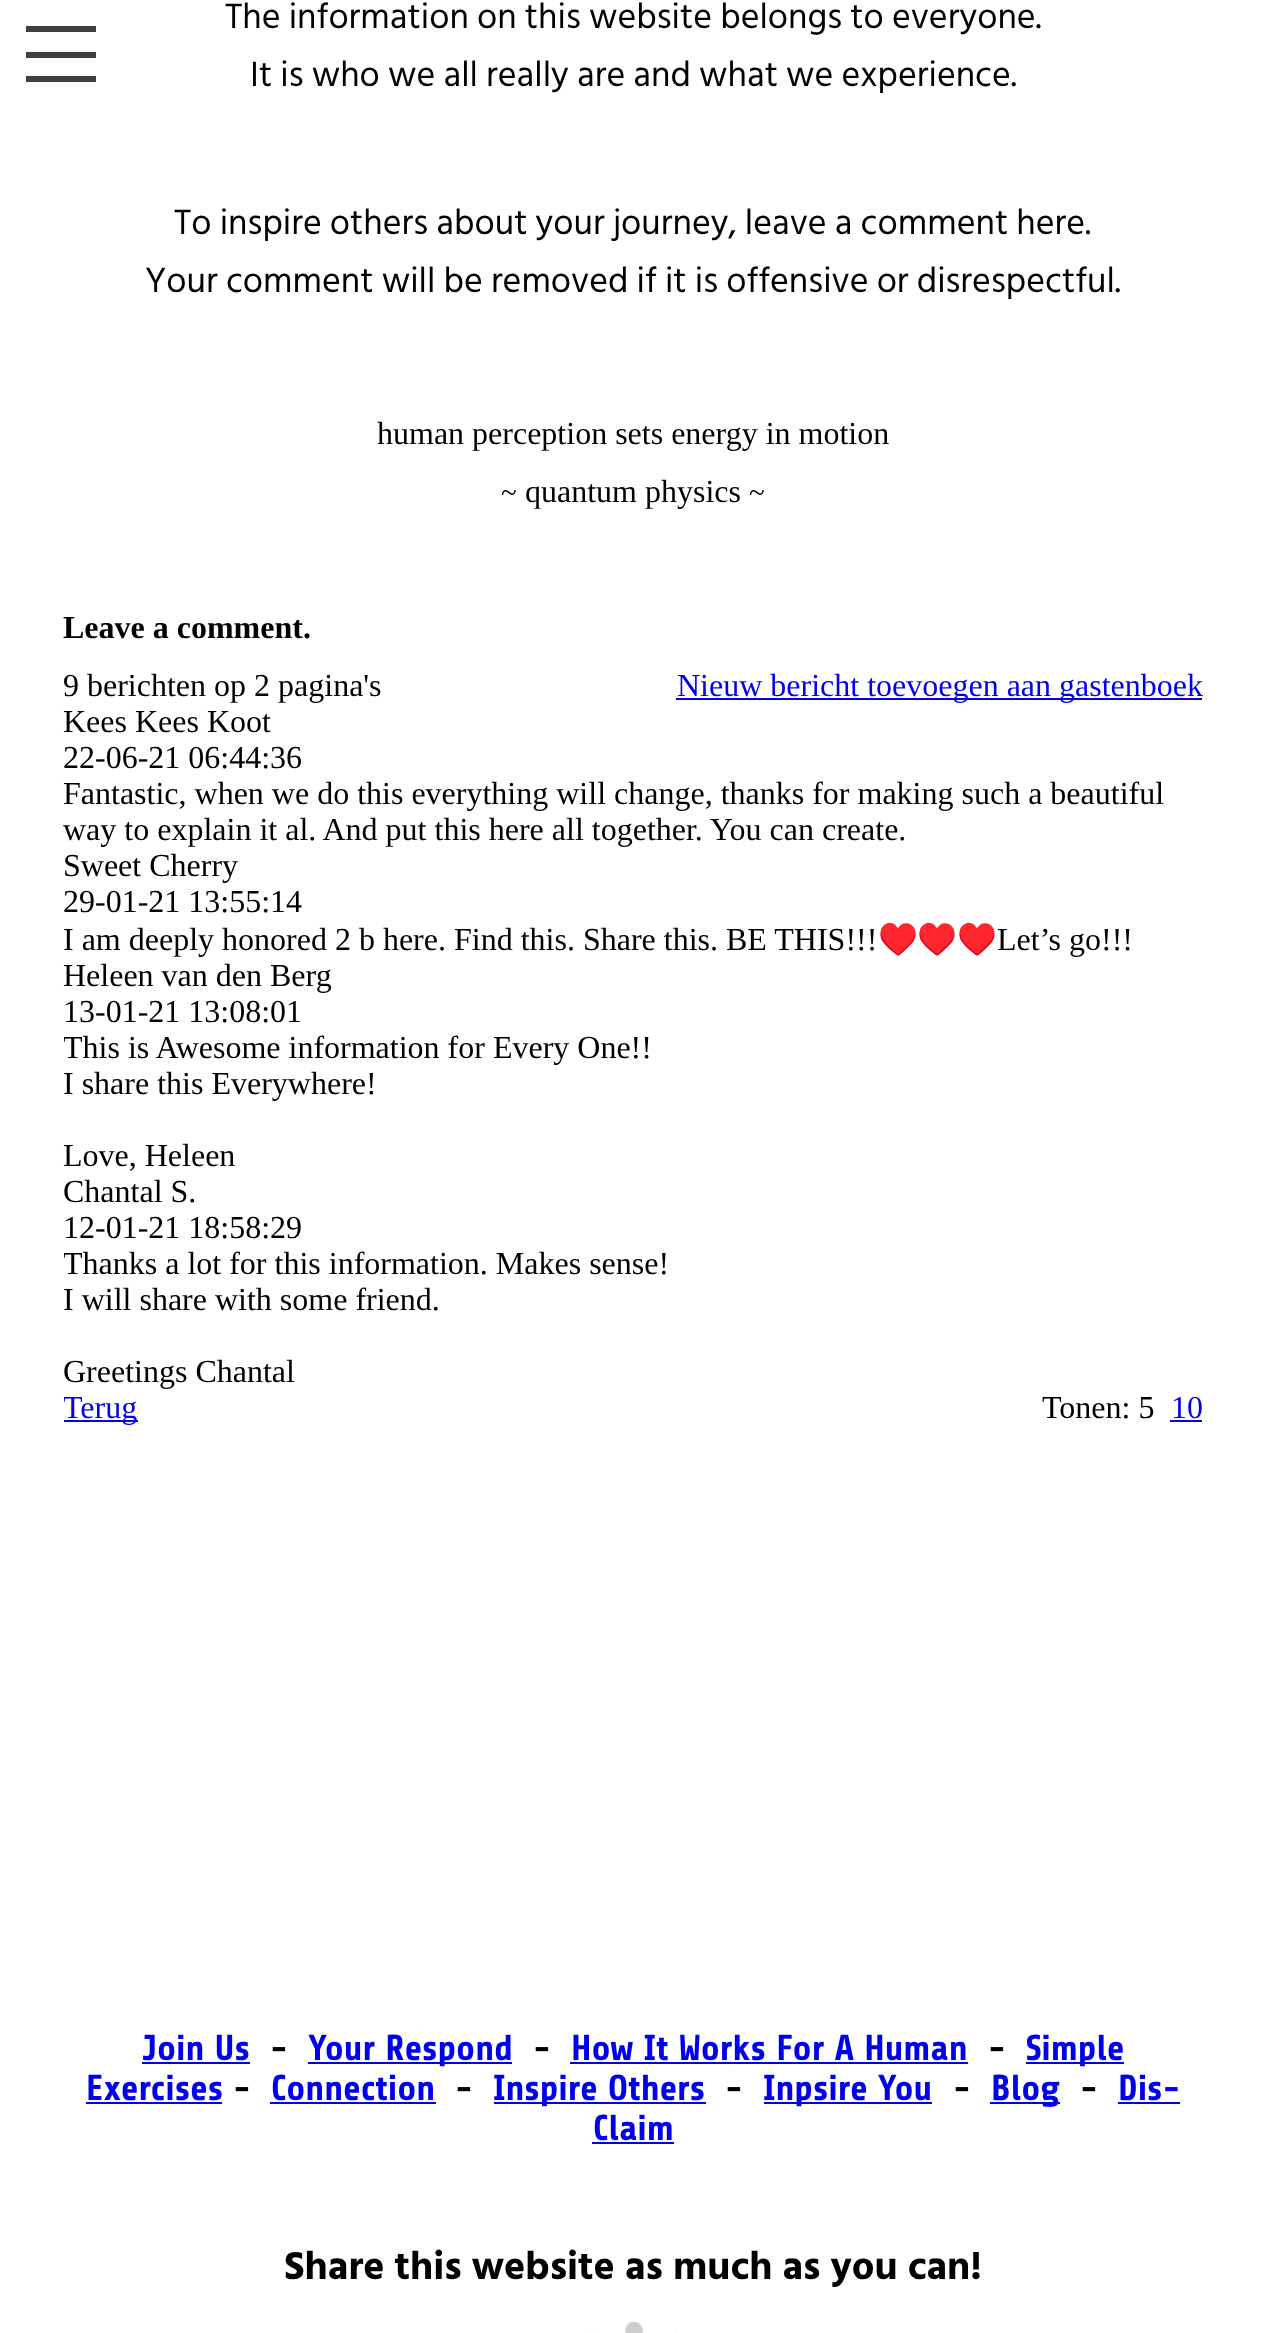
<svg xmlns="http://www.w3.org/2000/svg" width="1266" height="2333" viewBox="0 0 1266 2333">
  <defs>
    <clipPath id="clip1"><rect x="64" y="588" width="1138" height="838"/></clipPath>
  </defs>
  <rect width="100%" height="100%" fill="rgb(255,255,255)"/>
  <rect x="26" y="26" width="70" height="6" fill="rgb(64,64,64)"/>
  <rect x="26" y="52" width="70" height="6" fill="rgb(64,64,64)"/>
  <rect x="26" y="76" width="70" height="6" fill="rgb(64,64,64)"/>
  <g font-family="Hind Siliguri" font-size="36" fill="rgb(0,0,0)">
    <text x="225" y="28">The information on this website belongs to everyone.</text>
    <text x="250" y="86">It is who we all really are and what we experience.</text>
    <text x="174" y="234">To inspire others about your journey, leave a comment here.</text>
    <text x="145" y="292">Your comment will be removed if it is offensive or disrespectful.</text>
  </g>
  <text x="377" y="444" font-family="Liberation Serif" font-size="32" fill="rgb(0,0,0)">human perception sets energy in motion</text>
  <text x="501" y="502" font-family="Liberation Serif" font-size="29" fill="rgb(0,0,0)">~</text>
  <text x="525" y="502" font-family="Liberation Serif" font-size="32" fill="rgb(0,0,0)">quantum physics</text>
  <text x="749" y="502" font-family="Liberation Serif" font-size="29" fill="rgb(0,0,0)">~</text>
  <text x="63" y="638" font-family="Liberation Serif" font-size="32" font-weight="bold" fill="rgb(0,0,0)">Leave a comment.</text>
  <text x="63" y="696" font-family="Liberation Serif" font-size="32" fill="rgb(0,0,0)">9 berichten op 2 pagina's</text>
  <rect x="676" y="698" width="526" height="2" fill="rgb(0,0,238)"/>
  <text x="677" y="696" font-family="Liberation Serif" font-size="32" fill="rgb(0,0,238)">Nieuw bericht toevoegen aan gastenboek</text>
  <g font-family="Liberation Serif" font-size="32" fill="rgb(0,0,0)">
    <text>
      <tspan x="63" y="732">Kees Kees Koot</tspan>
      <tspan x="63" y="768">22-06-21 06:44:36</tspan>
      <tspan x="63" y="804">Fantastic, when we do this everything will change, thanks for making such a beautiful</tspan>
      <tspan x="63" y="840">way to explain it al. And put this here all together. You can create.</tspan>
      <tspan x="63" y="876">Sweet Cherry</tspan>
      <tspan x="63" y="912">29-01-21 13:55:14</tspan>
      <tspan x="63" y="950">I am deeply honored 2 b here. Find this. Share this. BE THIS!!!</tspan>
    </text>
  </g>
  <text x="878" y="950" font-family="Noto Color Emoji" font-size="32" fill="rgb(0,0,0)">♥️♥️♥️</text>
  <g font-family="Liberation Serif" font-size="32" fill="rgb(0,0,0)">
    <text x="997" y="950">Let’s go!!!</text>
    <text>
      <tspan x="63" y="986">Heleen van den Berg</tspan>
      <tspan x="63" y="1022">13-01-21 13:08:01</tspan>
    </text>
  </g>
  <g clip-path="url(#clip1)">
    <text x="63" y="1058" font-family="Liberation Serif" font-size="32" fill="rgb(0,0,0)">This is Awesome information for Every One!!</text>
  </g>
  <g font-family="Liberation Serif" font-size="32" fill="rgb(0,0,0)">
    <text x="63" y="1094">I share this Everywhere!</text>
    <text>
      <tspan x="63" y="1166">Love, Heleen</tspan>
      <tspan x="63" y="1202">Chantal S.</tspan>
      <tspan x="63" y="1238">12-01-21 18:58:29</tspan>
    </text>
  </g>
  <g clip-path="url(#clip1)">
    <text x="63" y="1274" font-family="Liberation Serif" font-size="32" fill="rgb(0,0,0)">Thanks a lot for this information. Makes sense!</text>
  </g>
  <g font-family="Liberation Serif" font-size="32" fill="rgb(0,0,0)">
    <text x="63" y="1310">I will share with some friend.</text>
    <text x="63" y="1382">Greetings Chantal</text>
  </g>
  <rect x="64" y="1420" width="74" height="2" fill="rgb(0,0,238)"/>
  <g clip-path="url(#clip1)">
    <text x="63" y="1418" font-family="Liberation Serif" font-size="32" fill="rgb(0,0,238)">Terug</text>
  </g>
  <text x="1042" y="1418" font-family="Liberation Serif" font-size="32" fill="rgb(0,0,0)">Tonen: 5</text>
  <text x="1171" y="1418" font-family="Liberation Serif" font-size="32" fill="rgb(0,0,238)">10</text>
  <rect x="1170" y="1420" width="32" height="2" fill="rgb(0,0,238)"/>
  <text x="142" y="2060" font-family="Share" font-size="36" font-weight="bold" fill="rgb(0,0,238)">Join Us</text>
  <rect x="142" y="2062" width="108" height="2" fill="rgb(0,0,238)"/>
  <text x="270" y="2060" font-family="Share" font-size="36" font-weight="bold" fill="rgb(0,0,0)">-</text>
  <rect x="308" y="2062" width="204" height="2" fill="rgb(0,0,238)"/>
  <text x="308" y="2060" font-family="Share" font-size="36" font-weight="bold" fill="rgb(0,0,238)">Your Respond</text>
  <text x="533" y="2060" font-family="Share" font-size="36" font-weight="bold" fill="rgb(0,0,0)">-</text>
  <text x="571" y="2060" font-family="Share" font-size="36" font-weight="bold" fill="rgb(0,0,238)">How It Works For A Human</text>
  <rect x="570" y="2062" width="398" height="2" fill="rgb(0,0,238)"/>
  <text x="988" y="2060" font-family="Share" font-size="36" font-weight="bold" fill="rgb(0,0,0)">-</text>
  <rect x="1026" y="2062" width="98" height="2" fill="rgb(0,0,238)"/>
  <g font-family="Share" font-size="36" font-weight="bold" fill="rgb(0,0,238)">
    <text x="1026" y="2060">Simple</text>
    <text x="86" y="2100">Exercises</text>
  </g>
  <rect x="86" y="2102" width="136" height="2" fill="rgb(0,0,238)"/>
  <text x="233" y="2100" font-family="Share" font-size="36" font-weight="bold" fill="rgb(0,0,0)">-</text>
  <text x="271" y="2100" font-family="Share" font-size="36" font-weight="bold" fill="rgb(0,0,238)">Connection</text>
  <rect x="270" y="2102" width="166" height="2" fill="rgb(0,0,238)"/>
  <text x="455" y="2100" font-family="Share" font-size="36" font-weight="bold" fill="rgb(0,0,0)">-</text>
  <rect x="494" y="2102" width="212" height="2" fill="rgb(0,0,238)"/>
  <text x="493" y="2100" font-family="Share" font-size="36" font-weight="bold" fill="rgb(0,0,238)">Inspire Others</text>
  <text x="725" y="2100" font-family="Share" font-size="36" font-weight="bold" fill="rgb(0,0,0)">-</text>
  <rect x="764" y="2102" width="168" height="2" fill="rgb(0,0,238)"/>
  <text x="763" y="2100" font-family="Share" font-size="36" font-weight="bold" fill="rgb(0,0,238)">Inpsire You</text>
  <text x="953" y="2100" font-family="Share" font-size="36" font-weight="bold" fill="rgb(0,0,0)">-</text>
  <rect x="990" y="2102" width="70" height="2" fill="rgb(0,0,238)"/>
  <text x="991" y="2100" font-family="Share" font-size="36" font-weight="bold" fill="rgb(0,0,238)">Blog</text>
  <text x="1080" y="2100" font-family="Share" font-size="36" font-weight="bold" fill="rgb(0,0,0)">-</text>
  <text x="1118" y="2100" font-family="Share" font-size="36" font-weight="bold" fill="rgb(0,0,238)">Dis-</text>
  <rect x="1118" y="2102" width="62" height="2" fill="rgb(0,0,238)"/>
  <text x="593" y="2140" font-family="Share" font-size="36" font-weight="bold" fill="rgb(0,0,238)">Claim</text>
  <rect x="592" y="2142" width="82" height="2" fill="rgb(0,0,238)"/>
  <text x="284" y="2279" font-family="Hind Siliguri" font-size="40" font-weight="bold" fill="rgb(0,0,0)">Share this website as much as you can!</text>
  <image x="589" y="2322" width="90" height="11" href="pic1.png"/>
</svg>
